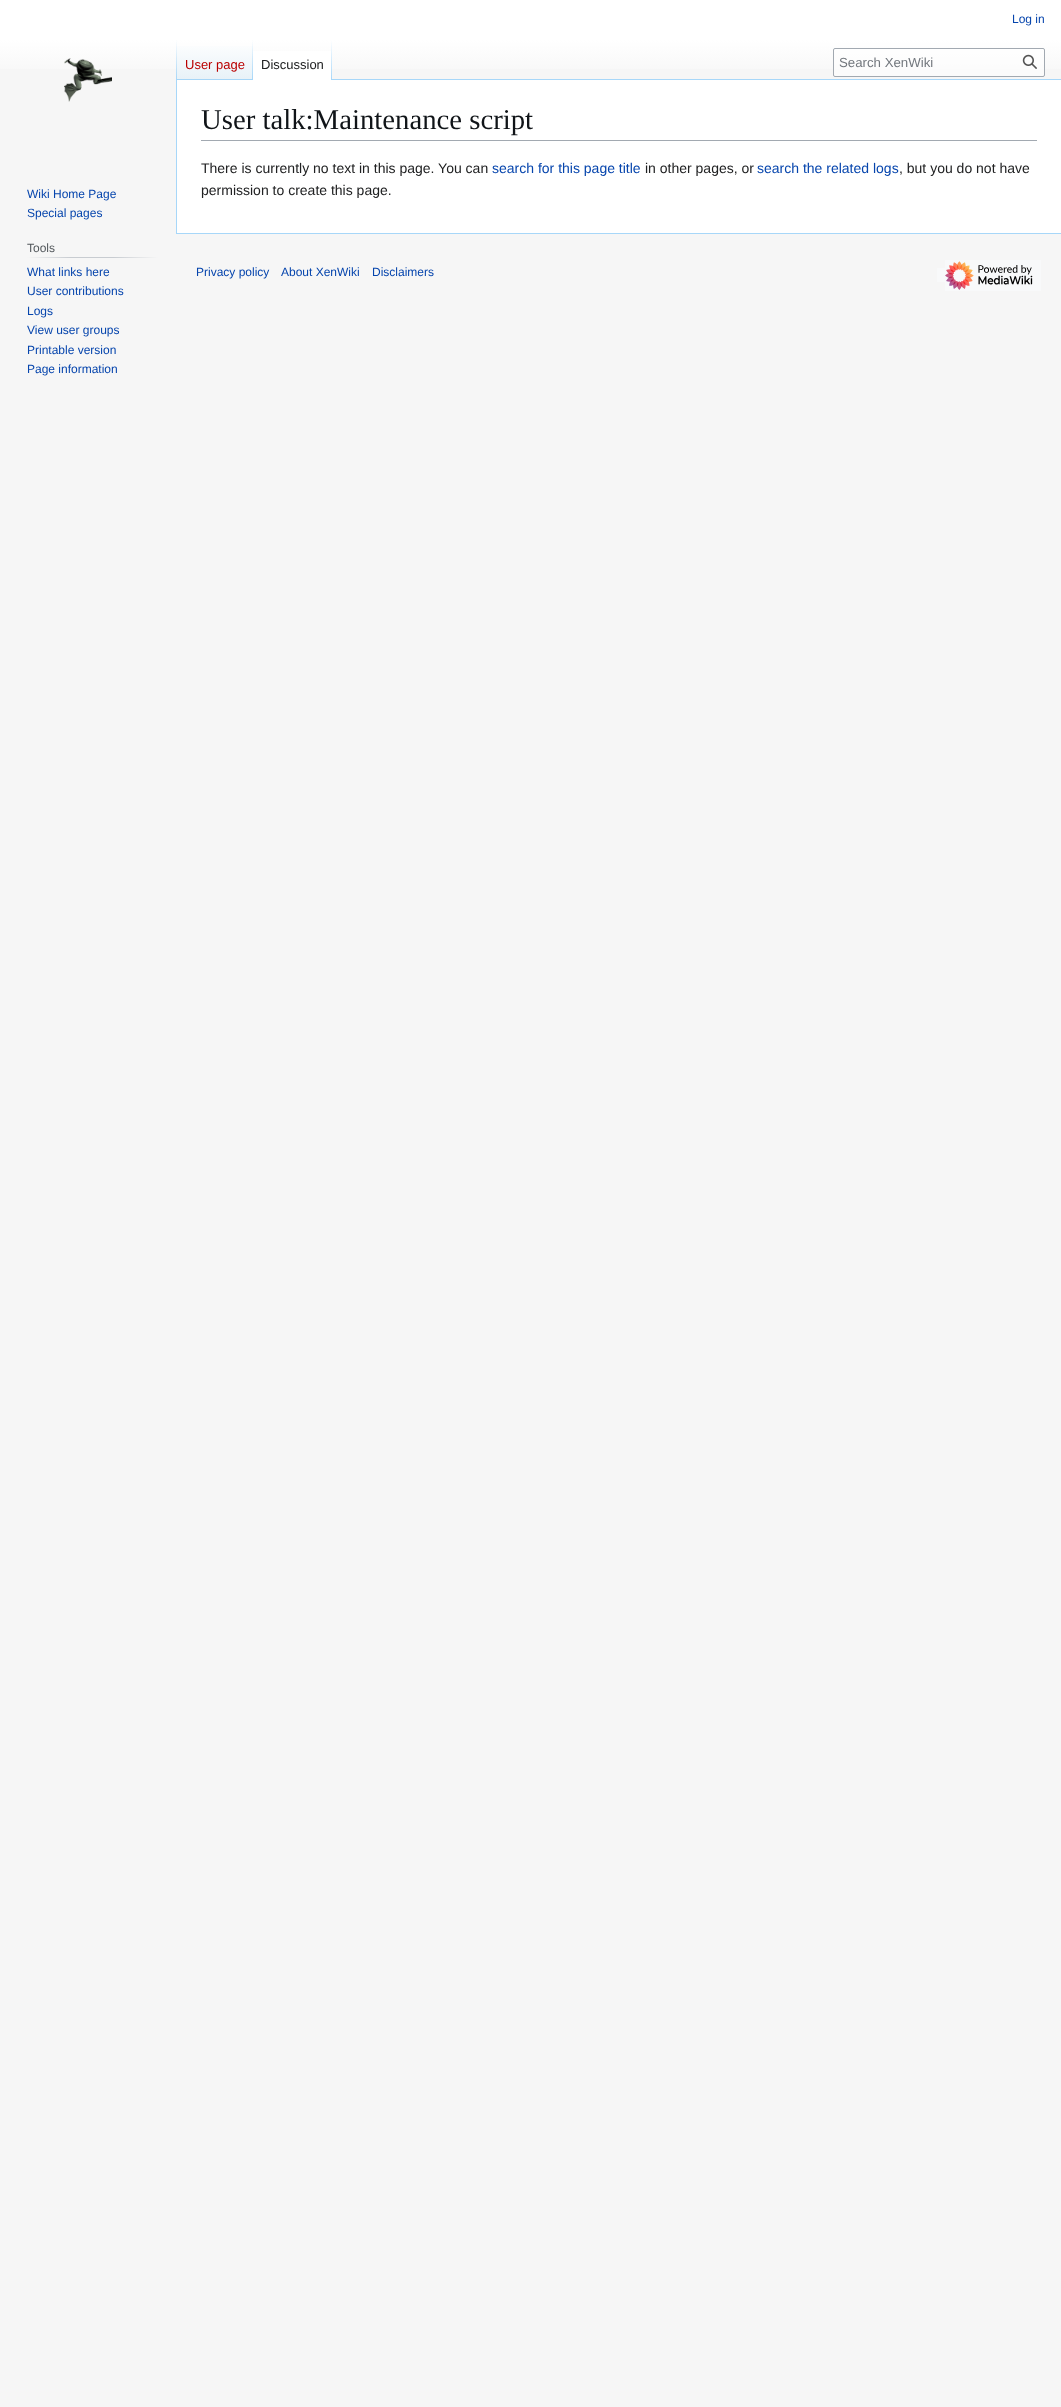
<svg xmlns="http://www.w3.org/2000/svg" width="1061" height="2407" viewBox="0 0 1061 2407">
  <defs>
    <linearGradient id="g1" gradientUnits="userSpaceOnUse" x1="531" y1="0" x2="531" y2="80"><stop offset="0.5" stop-color="rgb(255,255,255)"/><stop offset="1" stop-color="rgb(246,246,246)"/></linearGradient>
    <linearGradient id="g2" gradientUnits="userSpaceOnUse" x1="177" y1="40" x2="177" y2="80"><stop offset="0" stop-color="rgb(167,215,249)" stop-opacity="0"/><stop offset="1" stop-color="rgb(167,215,249)"/></linearGradient>
    <linearGradient id="g3" gradientUnits="userSpaceOnUse" x1="215" y1="80" x2="215" y2="40"><stop offset="0" stop-color="rgb(119,193,246)"/><stop offset="0.03" stop-color="rgb(232,242,248)"/><stop offset="1" stop-color="rgb(255,255,255)"/></linearGradient>
    <linearGradient id="g4" gradientUnits="userSpaceOnUse" x1="253" y1="40" x2="253" y2="80"><stop offset="0" stop-color="rgb(167,215,249)" stop-opacity="0"/><stop offset="1" stop-color="rgb(167,215,249)"/></linearGradient>
    <linearGradient id="g5" gradientUnits="userSpaceOnUse" x1="332" y1="40" x2="332" y2="80"><stop offset="0" stop-color="rgb(255,255,255)"/><stop offset="1" stop-color="rgb(167,215,249)"/></linearGradient>
    <linearGradient id="g6" gradientUnits="userSpaceOnUse" x1="27" y1="258" x2="158" y2="258"><stop offset="0" stop-color="rgb(246,246,246)"/><stop offset="0.33" stop-color="rgb(200,204,209)"/><stop offset="0.66" stop-color="rgb(200,204,209)"/><stop offset="1" stop-color="rgb(246,246,246)"/></linearGradient>
  </defs>
  <rect width="100%" height="100%" fill="rgb(246,246,246)"/>
  <rect x="0" y="0" width="1061" height="69" fill="url(#g1)"/>
  <text x="1012" y="23" font-family="Liberation Sans" font-size="12" fill="rgb(6,69,173)">Log in</text>
  <rect x="176" y="233" width="885" height="1" fill="rgb(167,215,249)"/>
  <rect x="176" y="79" width="1" height="155" fill="rgb(167,215,249)"/>
  <rect x="176" y="40" width="1" height="40" fill="url(#g2)"/>
  <rect x="177" y="46" width="76" height="34" fill="url(#g3)"/>
  <rect x="252" y="40" width="1" height="40" fill="url(#g4)"/>
  <text x="185" y="69" font-family="Liberation Sans" font-size="13" fill="rgb(186,0,0)">User page</text>
  <rect x="253" y="51" width="78" height="29" fill="rgb(255,255,255)"/>
  <rect x="331" y="40" width="1" height="40" fill="url(#g5)"/>
  <text x="261" y="69" font-family="Liberation Sans" font-size="13" fill="rgb(32,33,34)">Discussion</text>
  <rect x="833.5" y="48.5" width="211" height="28" rx="1.5" fill="rgba(255,255,255,0.5)" stroke="rgb(162,169,177)"/>
  <text x="839" y="67" font-family="Liberation Sans" font-size="13.25" fill="rgb(114,119,125)">Search XenWiki</text>
  <image x="1022" y="54" width="15" height="15" href="pic1.png"/>
  <image x="64" y="58" width="48" height="44" href="pic2.png"/>
  <g font-family="Liberation Sans" font-size="12" fill="rgb(6,69,173)">
    <text>
      <tspan x="27" y="198">Wiki Home Page</tspan>
      <tspan x="27" y="217">Special pages</tspan>
    </text>
  </g>
  <rect x="27" y="257" width="131" height="1" fill="url(#g6)"/>
  <text x="27" y="252" font-family="Liberation Sans" font-size="12" fill="rgb(84,89,93)">Tools</text>
  <g font-family="Liberation Sans" font-size="12" fill="rgb(6,69,173)">
    <text>
      <tspan x="27" y="276">What links here</tspan>
      <tspan x="27" y="295">User contributions</tspan>
      <tspan x="27" y="315">Logs</tspan>
      <tspan x="27" y="334">View user groups</tspan>
      <tspan x="27" y="354">Printable version</tspan>
      <tspan x="27" y="373">Page information</tspan>
    </text>
  </g>
  <rect x="177" y="80" width="884" height="153" fill="rgb(255,255,255)"/>
  <rect x="332" y="79" width="729" height="1" fill="rgb(167,215,249)"/>
  <rect x="201" y="140" width="836" height="1" fill="rgb(162,169,177)"/>
  <text x="201" y="129" font-family="Liberation Serif" font-size="28.75" fill="rgb(16,20,24)">User talk:Maintenance script</text>
  <text x="201" y="173" font-family="Liberation Sans" font-size="14" fill="rgb(32,33,34)">There is currently no text in this page. You can</text>
  <text x="492" y="173" font-family="Liberation Sans" font-size="14" fill="rgb(6,69,173)">search for this page title</text>
  <text x="645" y="173" font-family="Liberation Sans" font-size="14" fill="rgb(32,33,34)">in other pages, or</text>
  <text x="757" y="173" font-family="Liberation Sans" font-size="14" fill="rgb(6,69,173)">search the related logs</text>
  <g font-family="Liberation Sans" font-size="14" fill="rgb(32,33,34)">
    <text x="899" y="173">, but you do not have</text>
    <text x="201" y="195">permission to create this page.</text>
  </g>
  <g font-family="Liberation Sans" font-size="12" fill="rgb(6,69,173)">
    <text x="196" y="276">Privacy policy</text>
    <text x="281" y="276">About XenWiki</text>
    <text x="372" y="276">Disclaimers</text>
  </g>
  <rect x="945" y="260" width="96" height="31" fill="rgb(248,249,250)"/>
  <rect x="937" y="268" width="8" height="14" fill="rgb(248,249,250)"/>
  <image x="945" y="261" width="88" height="29" href="pic3.png"/>
</svg>
